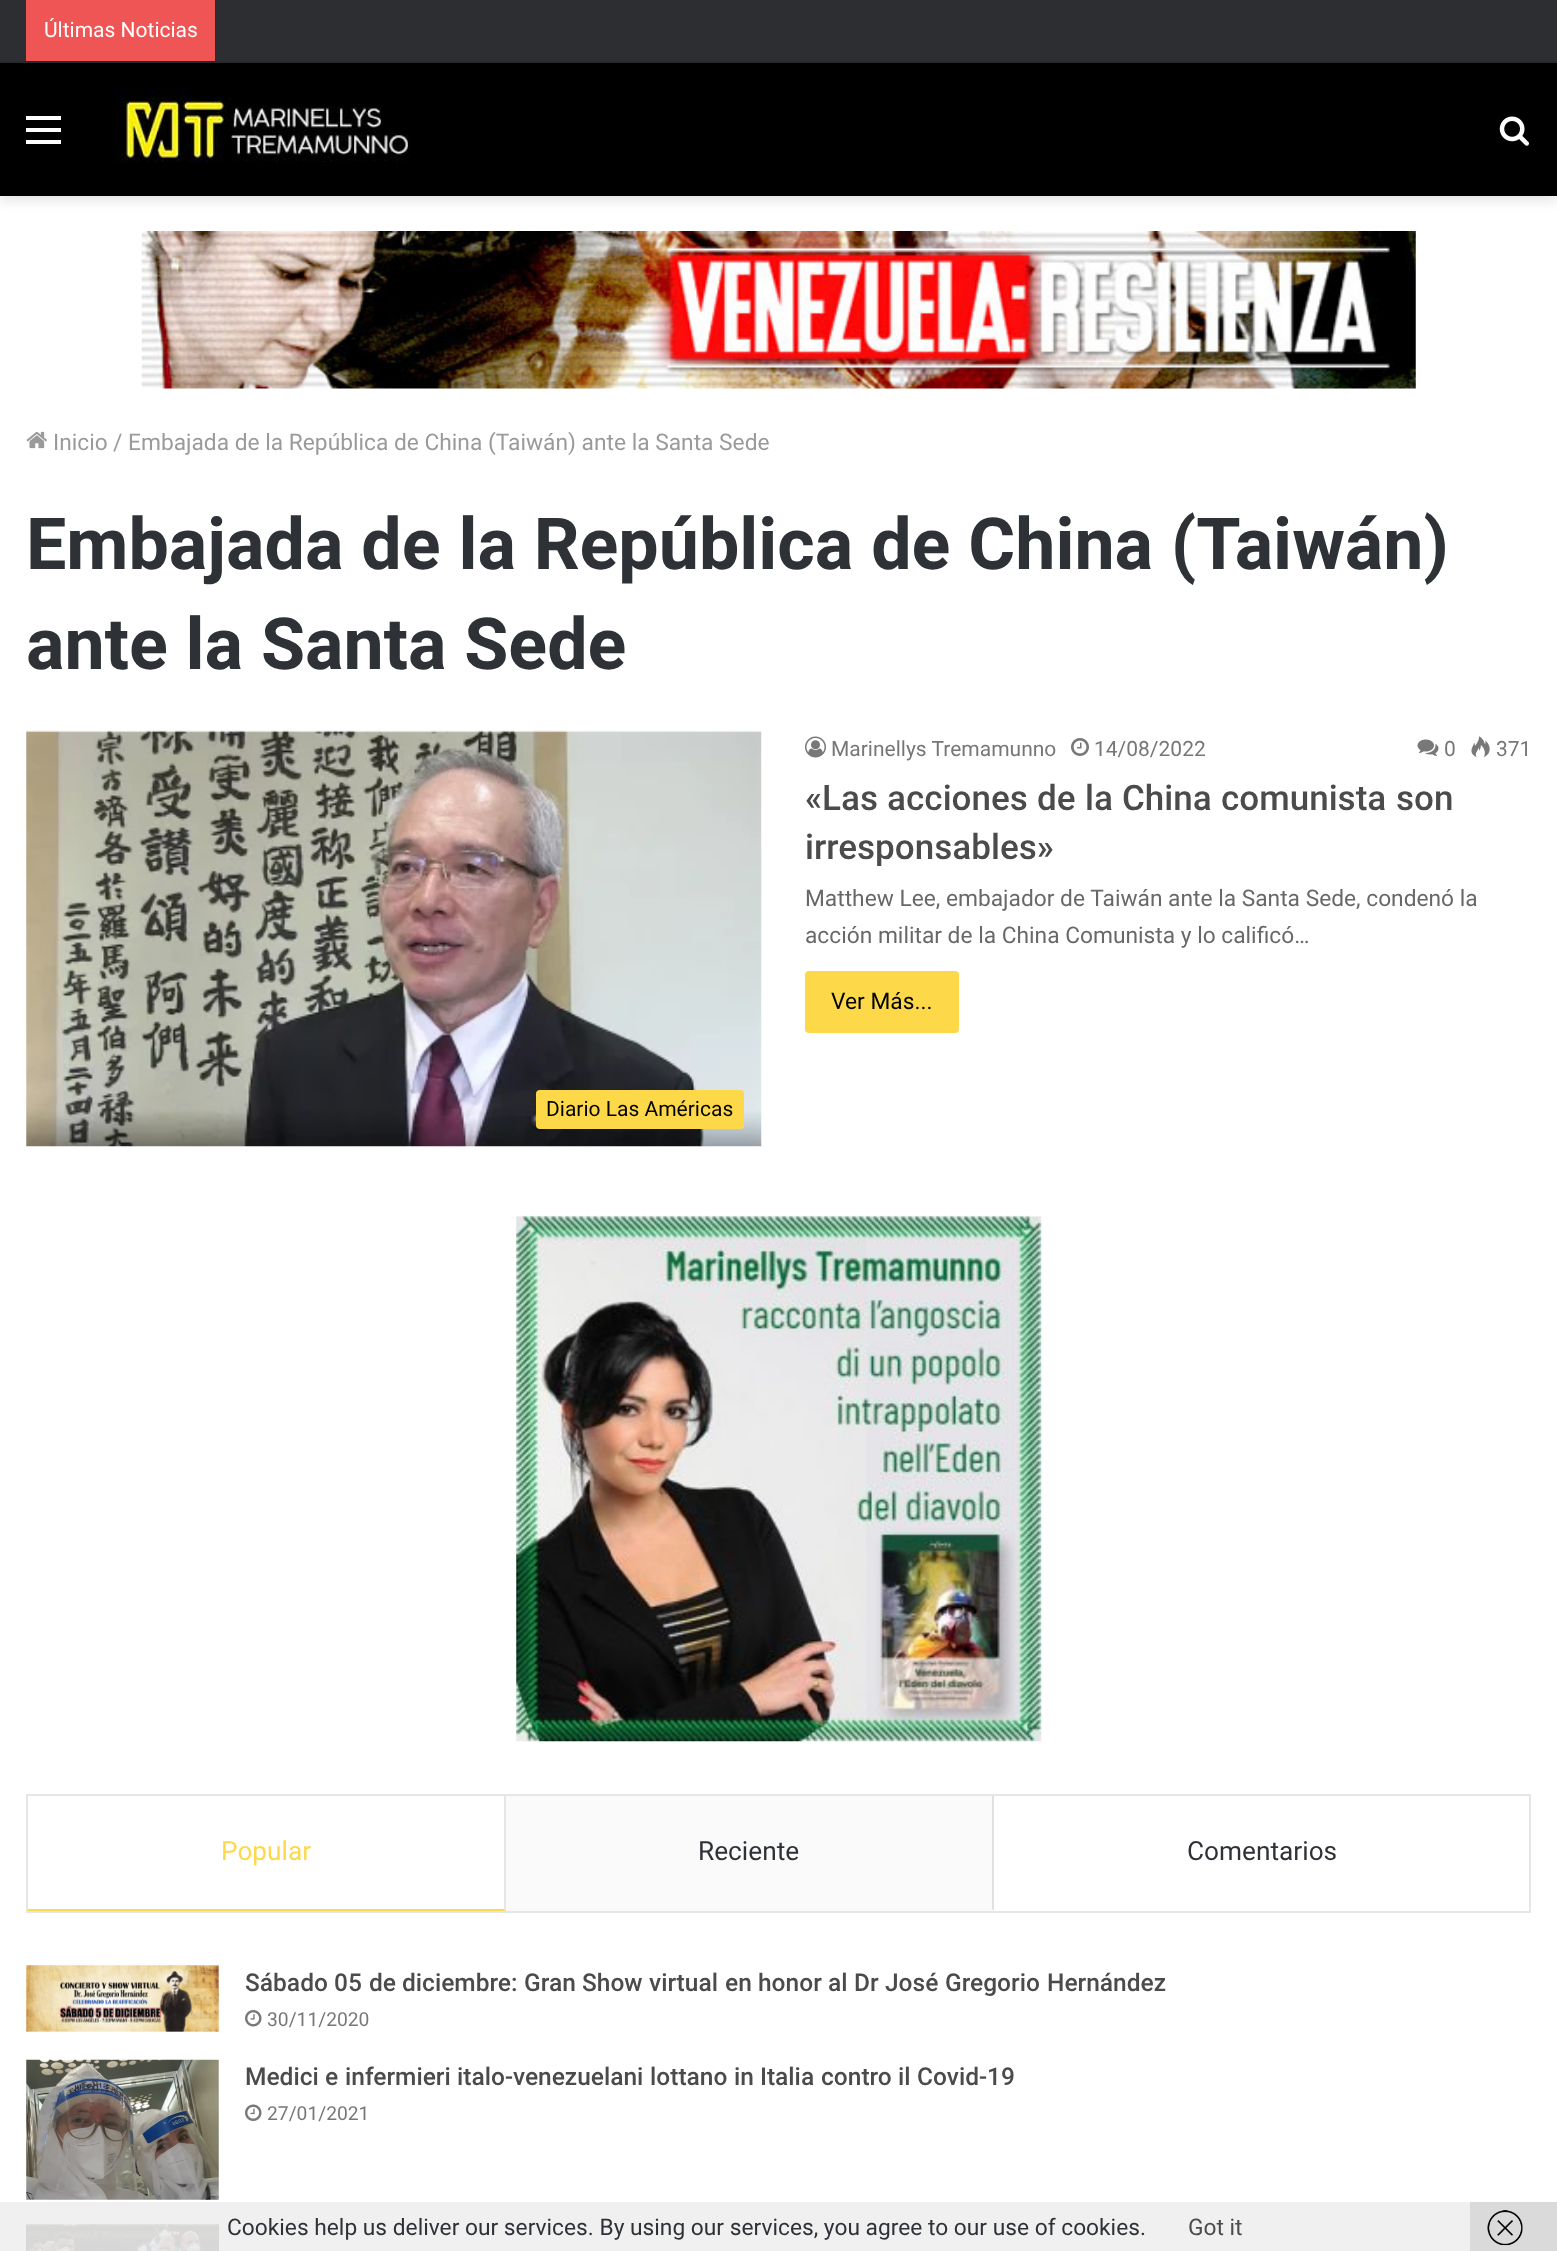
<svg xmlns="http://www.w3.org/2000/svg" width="1557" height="2251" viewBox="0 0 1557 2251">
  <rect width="100%" height="100%" fill="rgb(255,255,255)"/>
  <rect x="0" y="68" width="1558" height="133" fill="rgba(0,0,0,0.1)" filter="blur(6px)"/>
  <rect x="0" y="0" width="1557" height="61" fill="rgb(44,46,50)"/>
  <rect x="0" y="61" width="1557" height="2" fill="rgb(40,41,45)"/>
  <rect x="26" y="0" width="189" height="61" fill="rgb(240,85,85)"/>
  <text x="44" y="37" font-family="Roboto" font-size="21" fill="rgb(255,255,255)">Últimas Noticias</text>
  <rect x="0" y="63" width="1557" height="133" fill="rgb(0,0,0)"/>
  <rect x="26" y="128" width="35" height="4" fill="rgb(255,255,255)"/>
  <rect x="26" y="116" width="35" height="4" fill="rgb(255,255,255)"/>
  <rect x="26" y="140" width="35" height="4" fill="rgb(255,255,255)"/>
  <image x="113" y="87" width="296" height="76" href="pic1.png"/>
  <image x="1499" y="116" width="30" height="30" href="pic2.png"/>
  <image x="141" y="231" width="1275" height="158" href="pic3.png"/>
  <image x="26" y="431" width="21" height="18" href="pic4.png"/>
  <g font-family="Roboto" font-size="22.75" fill="rgb(154,154,154)">
    <text x="53" y="450">Inicio</text>
    <text x="113" y="450">/</text>
    <text x="128" y="450">Embajada de la República de China (Taiwán) ante la Santa Sede</text>
  </g>
  <g font-family="Roboto" font-size="71.75" font-weight="bold" fill="rgb(46,49,54)">
    <text>
      <tspan x="26" y="569">Embajada de la República de China (Taiwán)</tspan>
      <tspan x="26" y="669">ante la Santa Sede</tspan>
    </text>
  </g>
  <image x="805" y="736" width="21" height="22" href="pic5.png"/>
  <text x="831" y="756" font-family="Roboto" font-size="21" fill="rgb(119,119,119)">Marinellys Tremamunno</text>
  <image x="1071" y="738" width="18" height="18" href="pic6.png"/>
  <text x="1094" y="756" font-family="Roboto" font-size="21" fill="rgb(119,119,119)">14/08/2022</text>
  <image x="1417" y="739" width="22" height="17" href="pic7.png"/>
  <text x="1444" y="756" font-family="Roboto" font-size="21" fill="rgb(119,119,119)">0</text>
  <image x="1471" y="736" width="19" height="22" href="pic8.png"/>
  <text x="1496" y="756" font-family="Roboto" font-size="21" fill="rgb(119,119,119)">371</text>
  <g font-family="Roboto" font-size="35" font-weight="500" fill="rgb(75,75,75)">
    <text x="805" y="810">«Las</text>
    <text x="887" y="810">acciones</text>
    <text x="1037" y="810">de</text>
    <text x="1085" y="810">la</text>
    <text x="1122" y="810">China</text>
    <text x="1221" y="810">comunista</text>
    <text x="1396" y="810">son</text>
    <text x="805" y="859">irresponsables»</text>
  </g>
  <g font-family="Roboto" font-size="22.75" fill="rgb(104,104,104)">
    <text>
      <tspan x="805" y="906">Matthew Lee, embajador de Taiwán ante la Santa Sede, condenó la</tspan>
      <tspan x="805" y="943">acción militar de la China Comunista y lo calificó…</tspan>
    </text>
  </g>
  <rect x="805" y="971" width="154" height="62" rx="4" fill="rgb(253,217,73)"/>
  <text x="831" y="1009" font-family="Roboto" font-size="22.75" fill="rgb(3,3,3)">Ver Más...</text>
  <image x="26" y="730" width="736" height="417" href="pic9.png"/>
  <rect x="536" y="1090" width="208" height="39" rx="4" fill="rgb(253,217,73)"/>
  <text x="546" y="1116" font-family="Roboto" font-size="21" fill="rgb(3,3,3)">Diario Las Américas</text>
  <image x="516" y="1215" width="526" height="527" href="pic10.png"/>
  <rect x="27" y="1795" width="1503" height="117" fill="none" stroke="rgb(230,230,230)" stroke-width="2"/>
  <path d="M506 1796V1911L504 1909V1796Z" fill="rgb(230,230,230)"/>
  <path d="M506 1911H28V1909H504Z" fill="rgb(253,217,73)"/>
  <text x="221" y="1860" font-family="Roboto" font-size="26.25" fill="rgb(253,217,73)">Popular</text>
  <rect x="506" y="1796" width="488" height="115" fill="rgb(250,250,250)"/>
  <path d="M994 1796V1911L992 1909V1796Z" fill="rgb(225,225,225)"/>
  <g font-family="Roboto" font-size="26.25" fill="rgb(46,49,54)">
    <text x="698" y="1860">Reciente</text>
    <text x="1187" y="1860">Comentarios</text>
  </g>
  <image x="26" y="1965" width="193" height="67" href="pic11.png"/>
  <g font-family="Roboto" font-size="24.5" font-weight="500" fill="rgb(75,75,75)">
    <text x="245" y="1991">Sábado</text>
    <text x="334" y="1991">05</text>
    <text x="369" y="1991">de</text>
    <text x="402" y="1991">diciembre:</text>
    <text x="524" y="1991">Gran</text>
    <text x="582" y="1991">Show</text>
    <text x="649" y="1991">virtual</text>
    <text x="725" y="1991">en</text>
    <text x="758" y="1991">honor</text>
    <text x="828" y="1991">al</text>
    <text x="854" y="1991">Dr</text>
    <text x="885" y="1991">José</text>
    <text x="945" y="1991">Gregorio</text>
    <text x="1047" y="1991">Hernández</text>
  </g>
  <image x="245" y="2010" width="17" height="17" href="pic12.png"/>
  <text x="267" y="2026" font-family="Roboto" font-size="19.25" fill="rgb(119,119,119)">30/11/2020</text>
  <image x="26" y="2059" width="193" height="141" href="pic13.png"/>
  <g font-family="Roboto" font-size="24.5" font-weight="500" fill="rgb(75,75,75)">
    <text x="245" y="2085">Medici</text>
    <text x="325" y="2085">e</text>
    <text x="345" y="2085">infermieri</text>
    <text x="457" y="2085">italo-venezuelani</text>
    <text x="650" y="2085">lottano</text>
    <text x="734" y="2085">in</text>
    <text x="760" y="2085">Italia</text>
    <text x="821" y="2085">contro</text>
    <text x="898" y="2085">il</text>
    <text x="917" y="2085">Covid-19</text>
  </g>
  <image x="245" y="2104" width="17" height="17" href="pic14.png"/>
  <text x="267" y="2120" font-family="Roboto" font-size="19.25" fill="rgb(119,119,119)">27/01/2021</text>
  <image x="26" y="2224" width="193" height="27" href="pic15.png"/>
  <rect x="0" y="2202" width="1470" height="49" fill="rgba(238,238,238,0.9)"/>
  <text x="227" y="2235" font-family="Roboto" font-size="22.75" fill="rgb(46,49,54)">Cookies help us deliver our services. By using our services, you agree to our use of cookies.</text>
  <text x="1188" y="2235" font-family="Roboto" font-size="22.75" fill="rgb(75,75,75)">Got it</text>
  <rect x="1470" y="2202" width="87" height="49" fill="rgb(218,218,218)"/>
  <image x="1487" y="2210" width="36" height="36" href="pic16.png"/>
</svg>
